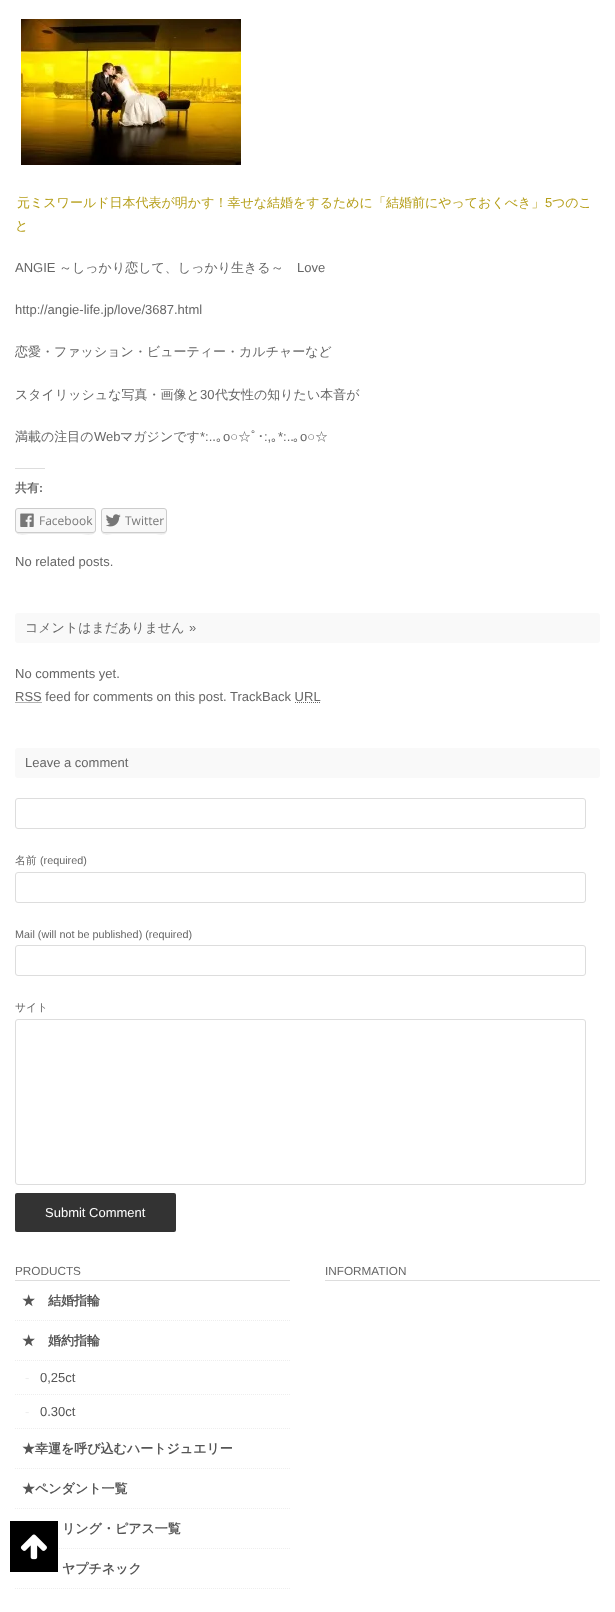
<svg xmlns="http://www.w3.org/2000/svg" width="615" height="1612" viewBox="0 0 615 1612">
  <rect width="100%" height="100%" fill="rgb(255,255,255)"/>
  <image x="21" y="19" width="220" height="146" href="pic1.png"/>
  <text x="17" y="207" font-family="WenQuanYi Zen Hei" font-size="13" font-weight="500" fill="rgb(182,159,26)">元ミスワールド日本代表が明かす！幸せな結婚をするために「結婚前にやっておくべき」</text>
  <text x="545" y="207" font-family="Liberation Sans" font-size="13" fill="rgb(182,159,26)">5</text>
  <g font-family="WenQuanYi Zen Hei" font-size="13" font-weight="500" fill="rgb(182,159,26)">
    <text x="552" y="207">つのこ</text>
    <text x="15" y="230">と</text>
  </g>
  <text x="15" y="272" font-family="Liberation Sans" font-size="13" fill="rgb(102,102,102)">ANGIE</text>
  <text x="59" y="272" font-family="WenQuanYi Zen Hei" font-size="13" font-weight="500" fill="rgb(102,102,102)">～しっかり恋して、しっかり生きる～</text>
  <g font-family="Liberation Sans" font-size="13" fill="rgb(102,102,102)">
    <text x="297" y="272">Love</text>
    <text x="15" y="314">http://angie-life.jp/love/3687.html</text>
  </g>
  <g font-family="WenQuanYi Zen Hei" font-size="13" font-weight="500" fill="rgb(102,102,102)">
    <text x="15" y="356">恋愛・ファッション・ビューティー・カルチャーなど</text>
    <text x="15" y="399">スタイリッシュな写真・画像と</text>
  </g>
  <text x="200" y="399" font-family="Liberation Sans" font-size="13" fill="rgb(102,102,102)">30</text>
  <g font-family="WenQuanYi Zen Hei" font-size="13" font-weight="500" fill="rgb(102,102,102)">
    <text x="215" y="399">代女性の知りたい本音が</text>
    <text x="15" y="441">満載の注目の</text>
  </g>
  <text x="94" y="441" font-family="Liberation Sans" font-size="13" fill="rgb(102,102,102)">Web</text>
  <text x="120" y="441" font-family="WenQuanYi Zen Hei" font-size="13" font-weight="500" fill="rgb(102,102,102)">マガジンです</text>
  <text x="200" y="441" font-family="Liberation Sans" font-size="13" fill="rgb(102,102,102)">*:..</text>
  <text x="216" y="441" font-family="IPAPGothic" font-size="13" fill="rgb(102,102,102)">｡</text>
  <text x="223" y="441" font-family="Liberation Sans" font-size="13" fill="rgb(102,102,102)">o○</text>
  <text x="238" y="441" font-family="WenQuanYi Zen Hei" font-size="13" font-weight="500" fill="rgb(102,102,102)">☆</text>
  <text x="251" y="441" font-family="IPAPGothic" font-size="13" fill="rgb(102,102,102)">ﾟ･</text>
  <text x="264" y="441" font-family="Liberation Sans" font-size="13" fill="rgb(102,102,102)">:,</text>
  <text x="271" y="441" font-family="IPAPGothic" font-size="13" fill="rgb(102,102,102)">｡</text>
  <text x="278" y="441" font-family="Liberation Sans" font-size="13" fill="rgb(102,102,102)">*:..</text>
  <text x="293" y="441" font-family="IPAPGothic" font-size="13" fill="rgb(102,102,102)">｡</text>
  <text x="300" y="441" font-family="Liberation Sans" font-size="13" fill="rgb(102,102,102)">o○</text>
  <text x="315" y="441" font-family="WenQuanYi Zen Hei" font-size="13" font-weight="500" fill="rgb(102,102,102)">☆</text>
  <rect x="15" y="468" width="30" height="1" fill="rgb(221,221,221)"/>
  <text x="15" y="492" font-family="WenQuanYi Zen Hei" font-size="12" font-weight="bold" fill="rgb(102,102,102)">共有</text>
  <text x="39" y="492" font-family="Liberation Sans" font-size="12" font-weight="bold" fill="rgb(102,102,102)">:</text>
  <path d="M15 530C15 537 27 534 30 534H80C84 534 96 537 96 530C96 532 95 533 93 533H18C16 533 15 532 15 530Z" fill="rgb(235,235,235)"/>
  <rect x="15.5" y="508.5" width="80" height="24" rx="2.5" fill="rgb(248,248,248)" stroke="rgb(204,204,204)"/>
  <image x="20" y="513" width="14" height="14" href="pic2.png"/>
  <text x="39" y="525" font-family="Open Sans" font-size="12" fill="rgb(119,119,119)">Facebook</text>
  <path d="M101 530C101 537 110 534 114 534H154C158 534 167 537 167 530C167 532 166 533 164 533H104C102 533 101 532 101 530Z" fill="rgb(235,235,235)"/>
  <rect x="101.5" y="508.5" width="65" height="24" rx="2.5" fill="rgb(248,248,248)" stroke="rgb(204,204,204)"/>
  <image x="106" y="514" width="15" height="13" href="pic3.png"/>
  <text x="125" y="525" font-family="Open Sans" font-size="12" fill="rgb(119,119,119)">Twitter</text>
  <text x="15" y="566" font-family="Liberation Sans" font-size="13" fill="rgb(102,102,102)">No related posts.</text>
  <rect x="15" y="613" width="585" height="30" rx="3" fill="rgb(249,249,249)"/>
  <text x="25" y="632" font-family="WenQuanYi Zen Hei" font-size="13" font-weight="500" fill="rgb(102,102,102)">コメントはまだありません</text>
  <g font-family="Liberation Sans" font-size="13" fill="rgb(102,102,102)">
    <text x="189" y="632">»</text>
    <text x="15" y="678">No comments yet.</text>
  </g>
  <path d="M15.5 702.5H42" fill="none" stroke="rgb(102,102,102)" stroke-dasharray="1 1"/>
  <text x="15" y="701" font-family="Liberation Sans" font-size="13" fill="rgb(102,102,102)">RSS feed for comments on this post. TrackBack URL</text>
  <path d="M295 702.5H321" fill="none" stroke="rgb(102,102,102)" stroke-dasharray="1 1"/>
  <rect x="15" y="748" width="585" height="30" rx="3" fill="rgb(249,249,249)"/>
  <text x="25" y="767" font-family="Liberation Sans" font-size="13" fill="rgb(102,102,102)">Leave a comment</text>
  <rect x="15.5" y="798.5" width="570" height="30" rx="2.5" fill="none" stroke="rgb(221,221,221)"/>
  <text x="15" y="864" font-family="WenQuanYi Zen Hei" font-size="10.8" font-weight="500" fill="rgb(102,102,102)">名前</text>
  <text x="40" y="864" font-family="Liberation Sans" font-size="10.8" fill="rgb(102,102,102)">(required)</text>
  <rect x="15.5" y="872.5" width="570" height="30" rx="2.5" fill="none" stroke="rgb(221,221,221)"/>
  <text x="15" y="938" font-family="Liberation Sans" font-size="10.8" fill="rgb(102,102,102)">Mail (will not be published) (required)</text>
  <rect x="15.5" y="945.5" width="570" height="30" rx="2.5" fill="none" stroke="rgb(221,221,221)"/>
  <text x="15" y="1011" font-family="WenQuanYi Zen Hei" font-size="10.8" font-weight="500" fill="rgb(102,102,102)">サイト</text>
  <rect x="15.5" y="1019.5" width="570" height="165" rx="2.5" fill="none" stroke="rgb(221,221,221)"/>
  <rect x="15" y="1193" width="161" height="39" rx="2" fill="rgb(51,51,51)"/>
  <text x="45" y="1217" font-family="Liberation Sans" font-size="13" fill="rgb(255,255,255)">Submit Comment</text>
  <rect x="15" y="1280" width="275" height="1" fill="rgb(221,221,221)"/>
  <text x="15" y="1275" font-family="Liberation Sans" font-size="11.75" fill="rgb(102,102,102)">PRODUCTS</text>
  <path d="M15 1320.5H290" fill="none" stroke="rgb(238,238,238)" stroke-dasharray="1 1"/>
  <text x="22" y="1305" font-family="WenQuanYi Zen Hei" font-size="13" font-weight="bold" fill="rgb(85,85,85)">★　結婚指輪</text>
  <path d="M15 1360.5H290" fill="none" stroke="rgb(238,238,238)" stroke-dasharray="1 1"/>
  <text x="22" y="1345" font-family="WenQuanYi Zen Hei" font-size="13" font-weight="bold" fill="rgb(85,85,85)">★　婚約指輪</text>
  <path d="M15 1394.5H290" fill="none" stroke="rgb(238,238,238)" stroke-dasharray="1 1"/>
  <text x="25" y="1382" font-family="Liberation Sans" font-size="13" fill="rgb(238,238,238)">-</text>
  <text x="40" y="1382" font-family="Liberation Sans" font-size="13" fill="rgb(85,85,85)">0,25ct</text>
  <path d="M15 1428.5H290" fill="none" stroke="rgb(238,238,238)" stroke-dasharray="1 1"/>
  <text x="25" y="1416" font-family="Liberation Sans" font-size="13" fill="rgb(238,238,238)">-</text>
  <text x="40" y="1416" font-family="Liberation Sans" font-size="13" fill="rgb(85,85,85)">0.30ct</text>
  <path d="M15 1468.5H290" fill="none" stroke="rgb(238,238,238)" stroke-dasharray="1 1"/>
  <text x="22" y="1453" font-family="WenQuanYi Zen Hei" font-size="13" font-weight="bold" fill="rgb(85,85,85)">★幸運を呼び込むハートジュエリー</text>
  <path d="M15 1508.5H290" fill="none" stroke="rgb(238,238,238)" stroke-dasharray="1 1"/>
  <text x="22" y="1493" font-family="WenQuanYi Zen Hei" font-size="13" font-weight="bold" fill="rgb(85,85,85)">★ペンダント一覧</text>
  <path d="M15 1548.5H290" fill="none" stroke="rgb(238,238,238)" stroke-dasharray="1 1"/>
  <text x="62" y="1533" font-family="WenQuanYi Zen Hei" font-size="13" font-weight="bold" fill="rgb(85,85,85)">リング・ピアス一覧</text>
  <path d="M15 1588.5H290" fill="none" stroke="rgb(238,238,238)" stroke-dasharray="1 1"/>
  <text x="62" y="1573" font-family="WenQuanYi Zen Hei" font-size="13" font-weight="bold" fill="rgb(85,85,85)">ヤプチネック</text>
  <rect x="325" y="1280" width="275" height="1" fill="rgb(221,221,221)"/>
  <text x="325" y="1275" font-family="Liberation Sans" font-size="11.75" fill="rgb(102,102,102)">INFORMATION</text>
  <rect x="10" y="1521" width="48" height="51" fill="rgb(0,0,0)"/>
  <image x="20" y="1534" width="27" height="26" href="pic4.png"/>
</svg>
